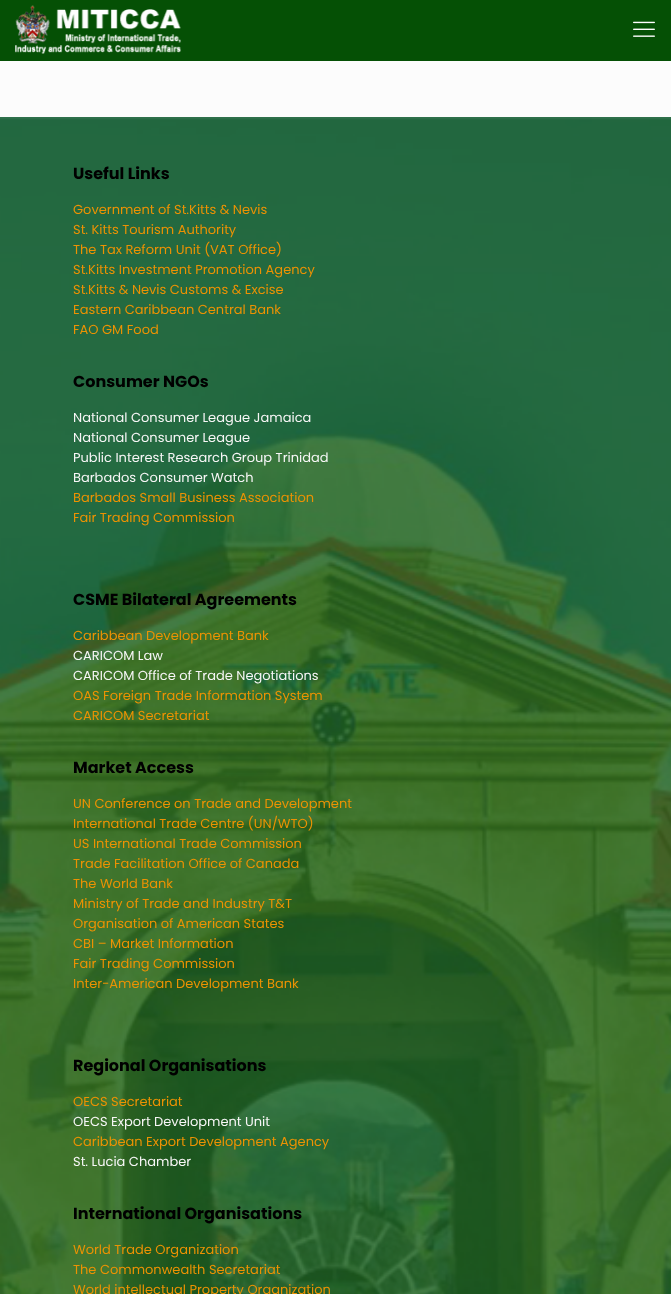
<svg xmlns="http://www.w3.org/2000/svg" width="671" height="1294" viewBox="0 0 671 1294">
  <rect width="100%" height="100%" fill="rgb(252,252,252)"/>
  <rect x="0" y="0" width="671" height="61" fill="rgb(5,80,5)"/>
  <image x="15" y="5" width="166" height="49" href="pic1.png"/>
  <image x="633" y="21" width="22" height="16" href="pic2.png"/>
  <image x="0" y="117" width="671" height="1177" href="pic3.png"/>
  <text x="73" y="179" font-family="Poppins" font-size="16" font-weight="bold" fill="rgb(0,0,0)">Useful Links</text>
  <g font-family="Poppins" font-size="13" fill="rgb(236,146,3)">
    <text>
      <tspan x="73" y="214">Government of St.Kitts &amp; Nevis</tspan>
      <tspan x="73" y="234">St. Kitts Tourism Authority</tspan>
      <tspan x="73" y="254">The Tax Reform Unit (VAT Office)</tspan>
      <tspan x="73" y="274">St.Kitts Investment Promotion Agency</tspan>
      <tspan x="73" y="294">St.Kitts &amp; Nevis Customs &amp; Excise</tspan>
      <tspan x="73" y="314">Eastern Caribbean Central Bank</tspan>
      <tspan x="73" y="334">FAO GM Food</tspan>
    </text>
  </g>
  <text x="73" y="387" font-family="Poppins" font-size="16" font-weight="bold" fill="rgb(0,0,0)">Consumer NGOs</text>
  <g font-family="Poppins" font-size="13" fill="rgb(247,246,246)">
    <text>
      <tspan x="73" y="422">National Consumer League Jamaica</tspan>
      <tspan x="73" y="442">National Consumer League</tspan>
      <tspan x="73" y="462">Public Interest Research Group Trinidad</tspan>
      <tspan x="73" y="482">Barbados Consumer Watch</tspan>
    </text>
  </g>
  <g font-family="Poppins" font-size="13" fill="rgb(236,146,3)">
    <text>
      <tspan x="73" y="502">Barbados Small Business Association</tspan>
      <tspan x="73" y="522">Fair Trading Commission</tspan>
    </text>
  </g>
  <text x="73" y="605" font-family="Poppins" font-size="16" font-weight="bold" fill="rgb(0,0,0)">CSME Bilateral Agreements</text>
  <text x="73" y="640" font-family="Poppins" font-size="13" fill="rgb(236,146,3)">Caribbean Development Bank</text>
  <g font-family="Poppins" font-size="13" fill="rgb(247,246,246)">
    <text>
      <tspan x="73" y="660">CARICOM Law</tspan>
      <tspan x="73" y="680">CARICOM Office of Trade Negotiations</tspan>
    </text>
  </g>
  <g font-family="Poppins" font-size="13" fill="rgb(236,146,3)">
    <text>
      <tspan x="73" y="700">OAS Foreign Trade Information System</tspan>
      <tspan x="73" y="720">CARICOM Secretariat</tspan>
    </text>
  </g>
  <text x="73" y="773" font-family="Poppins" font-size="16" font-weight="bold" fill="rgb(0,0,0)">Market Access</text>
  <g font-family="Poppins" font-size="13" fill="rgb(236,146,3)">
    <text>
      <tspan x="73" y="808">UN Conference on Trade and Development</tspan>
      <tspan x="73" y="828">International Trade Centre (UN/WTO)</tspan>
      <tspan x="73" y="848">US International Trade Commission</tspan>
      <tspan x="73" y="868">Trade Facilitation Office of Canada</tspan>
      <tspan x="73" y="888">The World Bank</tspan>
      <tspan x="73" y="908">Ministry of Trade and Industry T&amp;T</tspan>
      <tspan x="73" y="928">Organisation of American States</tspan>
      <tspan x="73" y="948">CBI – Market Information</tspan>
      <tspan x="73" y="968">Fair Trading Commission</tspan>
      <tspan x="73" y="988">Inter-American Development Bank</tspan>
    </text>
  </g>
  <text x="73" y="1071" font-family="Poppins" font-size="16" font-weight="bold" fill="rgb(0,0,0)">Regional Organisations</text>
  <text x="73" y="1106" font-family="Poppins" font-size="13" fill="rgb(236,146,3)">OECS Secretariat</text>
  <text x="73" y="1126" font-family="Poppins" font-size="13" fill="rgb(247,246,246)">OECS Export Development Unit</text>
  <text x="73" y="1146" font-family="Poppins" font-size="13" fill="rgb(236,146,3)">Caribbean Export Development Agency</text>
  <text x="73" y="1166" font-family="Poppins" font-size="13" fill="rgb(247,246,246)">St. Lucia Chamber</text>
  <text x="73" y="1219" font-family="Poppins" font-size="16" font-weight="bold" fill="rgb(0,0,0)">International Organisations</text>
  <g font-family="Poppins" font-size="13" fill="rgb(236,146,3)">
    <text>
      <tspan x="73" y="1254">World Trade Organization</tspan>
      <tspan x="73" y="1274">The Commonwealth Secretariat</tspan>
      <tspan x="73" y="1294">World intellectual Property Organization</tspan>
    </text>
  </g>
</svg>
